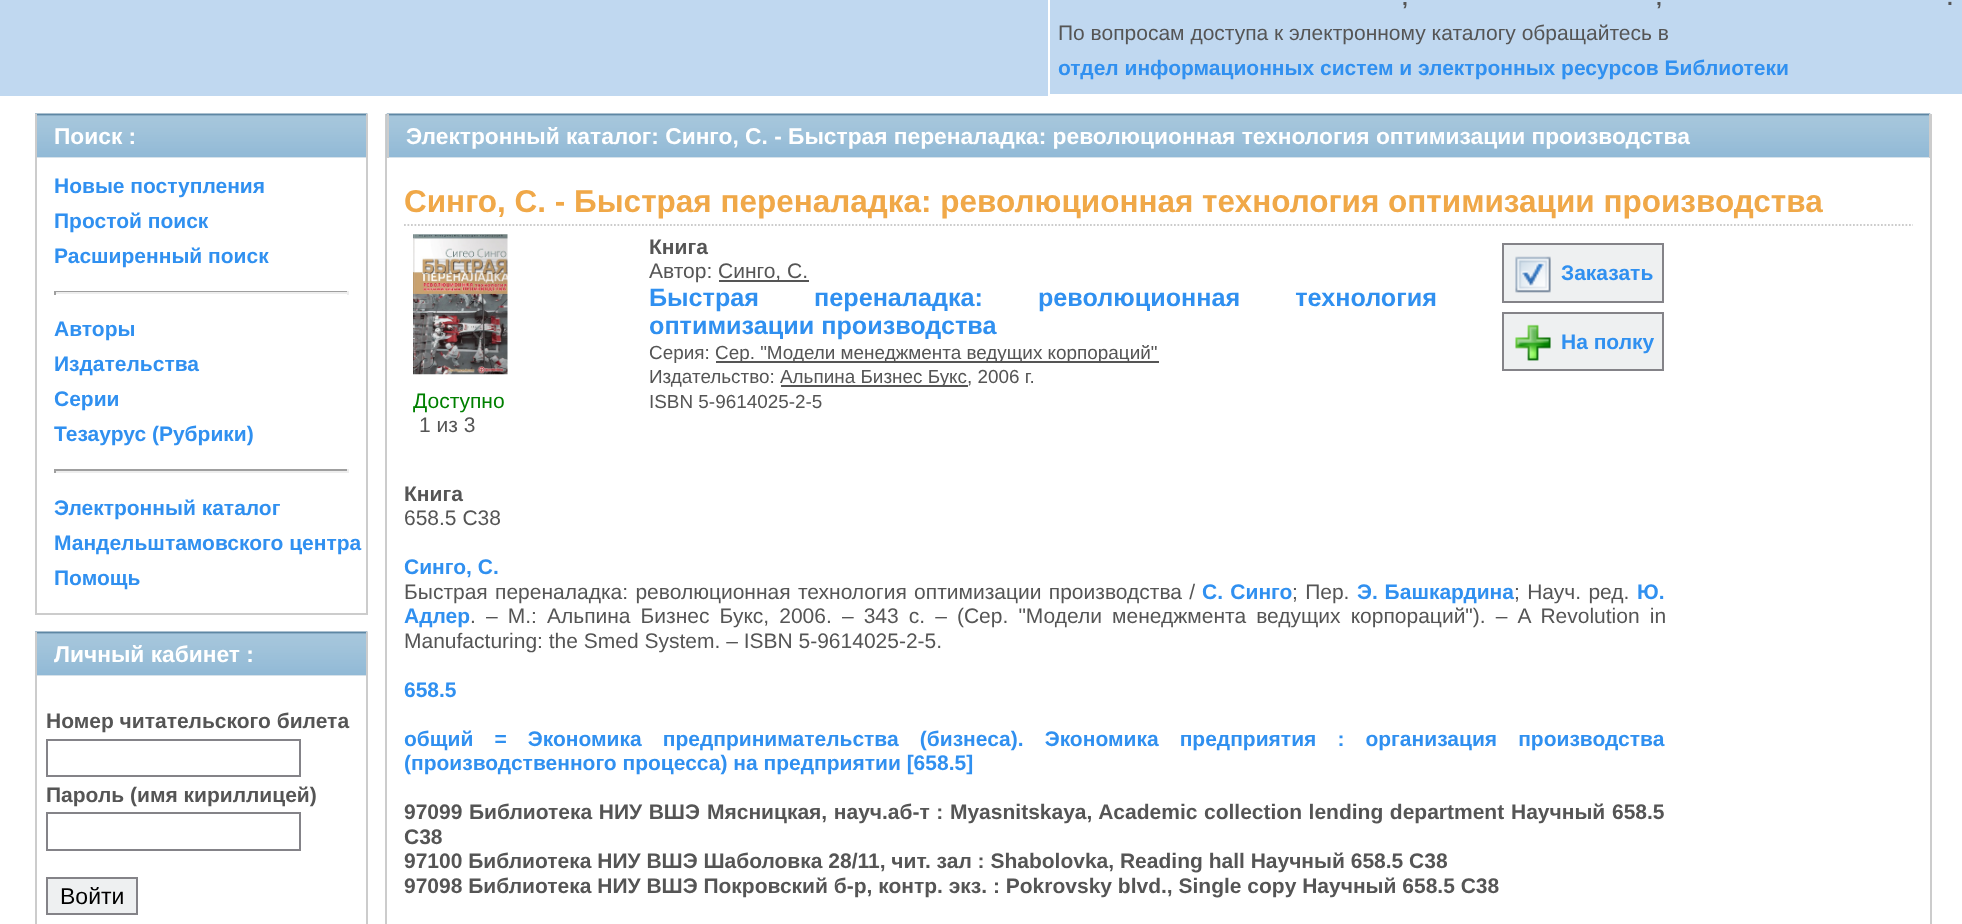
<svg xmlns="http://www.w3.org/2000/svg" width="1962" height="924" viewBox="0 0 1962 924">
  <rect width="100%" height="100%" fill="rgb(255,255,255)"/>
  <rect x="0" y="0" width="1962" height="96" fill="rgb(192,216,240)"/>
  <rect x="1049" y="-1" width="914" height="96" fill="none" stroke="rgb(255,255,255)" stroke-width="2"/>
  <g font-family="Liberation Sans" font-size="21" font-weight="bold" fill="rgb(85,85,85)">
    <text x="1402" y="5">,</text>
    <text x="1656" y="5">,</text>
    <text x="1947" y="5">.</text>
  </g>
  <text x="1058" y="40" font-family="Liberation Sans" font-size="21" fill="rgb(85,85,85)">По вопросам доступа к электронному каталогу обращайтесь в</text>
  <text x="1058" y="75" font-family="Liberation Sans" font-size="21" font-weight="bold" fill="rgb(48,144,240)">отдел информационных систем и электронных ресурсов Библиотеки</text>
  <rect x="37" y="157" width="329" height="1" fill="rgb(238,240,241)"/>
  <image x="35" y="113" width="333" height="45" href="pic1.png"/>
  <rect x="366" y="114" width="2" height="500" fill="rgb(204,204,204)"/>
  <rect x="35" y="114" width="2" height="44" fill="rgb(204,204,204)"/>
  <text x="54" y="144" font-family="Liberation Sans" font-size="22.75" font-weight="bold" fill="rgb(255,255,255)">Поиск :</text>
  <rect x="35" y="613" width="333" height="2" fill="rgb(204,204,204)"/>
  <rect x="35" y="158" width="2" height="456" fill="rgb(204,204,204)"/>
  <g font-family="Liberation Sans" font-size="21" font-weight="bold" fill="rgb(48,144,240)">
    <text>
      <tspan x="54" y="193">Новые поступления</tspan>
      <tspan x="54" y="228">Простой поиск</tspan>
      <tspan x="54" y="263">Расширенный поиск</tspan>
    </text>
  </g>
  <rect x="54" y="291" width="294" height="1" fill="rgb(159,159,159)"/>
  <rect x="347" y="291" width="2" height="4" fill="rgb(238,238,238)"/>
  <rect x="54" y="292" width="294" height="2" fill="rgb(238,238,238)"/>
  <rect x="54" y="291" width="2" height="4" fill="rgb(159,159,159)"/>
  <g font-family="Liberation Sans" font-size="21" font-weight="bold" fill="rgb(48,144,240)">
    <text>
      <tspan x="54" y="336">Авторы</tspan>
      <tspan x="54" y="371">Издательства</tspan>
      <tspan x="54" y="406">Серии</tspan>
      <tspan x="54" y="441">Тезаурус (Рубрики)</tspan>
    </text>
  </g>
  <rect x="54" y="469" width="294" height="2" fill="rgb(159,159,159)"/>
  <rect x="347" y="469" width="2" height="4" fill="rgb(238,238,238)"/>
  <rect x="54" y="471" width="294" height="2" fill="rgb(238,238,238)"/>
  <rect x="54" y="469" width="2" height="4" fill="rgb(159,159,159)"/>
  <g font-family="Liberation Sans" font-size="21" font-weight="bold" fill="rgb(48,144,240)">
    <text>
      <tspan x="54" y="515">Электронный каталог</tspan>
      <tspan x="54" y="550">Мандельштамовского центра</tspan>
      <tspan x="54" y="585">Помощь</tspan>
    </text>
  </g>
  <rect x="37" y="675" width="329" height="1" fill="rgb(238,240,241)"/>
  <image x="35" y="631" width="333" height="45" href="pic1.png"/>
  <rect x="366" y="632" width="2" height="292" fill="rgb(204,204,204)"/>
  <rect x="35" y="632" width="2" height="292" fill="rgb(204,204,204)"/>
  <text x="54" y="662" font-family="Liberation Sans" font-size="22.75" font-weight="bold" fill="rgb(255,255,255)">Личный кабинет :</text>
  <text x="46" y="728" font-family="Liberation Sans" font-size="21" font-weight="bold" fill="rgb(85,85,85)">Номер читательского билета</text>
  <rect x="47" y="740" width="253" height="36" fill="none" stroke="rgb(132,131,136)" stroke-width="2"/>
  <text x="46" y="802" font-family="Liberation Sans" font-size="21" font-weight="bold" fill="rgb(85,85,85)">Пароль (имя кириллицей)</text>
  <rect x="47" y="813" width="253" height="37" fill="none" stroke="rgb(132,131,136)" stroke-width="2"/>
  <rect x="47" y="878" width="90" height="36" fill="rgb(238,240,241)" stroke="rgb(132,131,136)" stroke-width="2"/>
  <text x="60" y="904" font-family="Liberation Sans" font-size="23" fill="rgb(0,0,0)">Войти</text>
  <rect x="1930" y="114" width="2" height="810" fill="rgb(204,204,204)"/>
  <rect x="385" y="114" width="2" height="810" fill="rgb(204,204,204)"/>
  <rect x="389" y="157" width="1540" height="1" fill="rgb(238,240,241)"/>
  <image x="386" y="113" width="1545" height="45" href="pic2.png"/>
  <rect x="1929" y="114" width="2" height="44" fill="rgb(204,204,204)"/>
  <rect x="387" y="114" width="2" height="44" fill="rgb(204,204,204)"/>
  <text x="406" y="144" font-family="Liberation Sans" font-size="22.75" font-weight="bold" fill="rgb(255,255,255)">Электронный каталог: Синго, С. - Быстрая переналадка: революционная технология оптимизации производства</text>
  <path d="M404 225H1913" fill="none" stroke="rgb(204,204,204)" stroke-width="1.8" stroke-dasharray="1.75 1.75"/>
  <text x="404" y="212" font-family="Liberation Sans" font-size="31.5" font-weight="bold" fill="rgb(240,168,72)">Синго, С. - Быстрая переналадка: революционная технология оптимизации производства</text>
  <text x="649" y="254" font-family="Liberation Sans" font-size="21" font-weight="bold" fill="rgb(85,85,85)">Книга</text>
  <text x="649" y="278" font-family="Liberation Sans" font-size="21" fill="rgb(85,85,85)">Автор:</text>
  <rect x="719" y="280" width="90" height="2" fill="rgb(85,85,85)"/>
  <text x="718" y="278" font-family="Liberation Sans" font-size="21" fill="rgb(85,85,85)">Синго, С.</text>
  <g font-family="Liberation Sans" font-size="25.2" font-weight="bold" fill="rgb(48,144,240)">
    <text>
      <tspan x="649" y="306" word-spacing="48">Быстрая переналадка: революционная технология</tspan>
      <tspan x="649" y="334">оптимизации производства</tspan>
    </text>
  </g>
  <text x="649" y="359" font-family="Liberation Sans" font-size="18.9" fill="rgb(85,85,85)">Серия:</text>
  <rect x="716" y="361" width="443" height="2" fill="rgb(85,85,85)"/>
  <g font-family="Liberation Sans" font-size="18.9" fill="rgb(85,85,85)">
    <text x="715" y="359">Сер. "Модели менеджмента ведущих корпораций"</text>
    <text x="649" y="383">Издательство:</text>
  </g>
  <rect x="781" y="385" width="187" height="2" fill="rgb(85,85,85)"/>
  <g font-family="Liberation Sans" font-size="18.9" fill="rgb(85,85,85)">
    <text x="780" y="383">Альпина Бизнес Букс, 2006 г.</text>
    <text x="649" y="408">ISBN 5-9614025-2-5</text>
  </g>
  <rect x="1503" y="244" width="160" height="58" fill="rgb(238,240,241)" stroke="rgb(132,131,136)" stroke-width="2"/>
  <image x="1515" y="256" width="36" height="37" href="pic3.png"/>
  <text x="1561" y="280" font-family="Liberation Sans" font-size="21" font-weight="bold" fill="rgb(48,144,240)">Заказать</text>
  <rect x="1503" y="313" width="160" height="57" fill="rgb(238,240,241)" stroke="rgb(132,131,136)" stroke-width="2"/>
  <image x="1515" y="324" width="36" height="37" href="pic4.png"/>
  <text x="1561" y="349" font-family="Liberation Sans" font-size="21" font-weight="bold" fill="rgb(48,144,240)">На полку</text>
  <image x="413" y="234" width="95" height="141" href="pic5.png"/>
  <text x="413" y="408" font-family="Liberation Sans" font-size="21" fill="rgb(0,128,0)">Доступно</text>
  <text x="419" y="432" font-family="Liberation Sans" font-size="21" fill="rgb(85,85,85)">1 из 3</text>
  <text x="404" y="501" font-family="Liberation Sans" font-size="21" font-weight="bold" fill="rgb(85,85,85)">Книга</text>
  <text x="404" y="525" font-family="Liberation Sans" font-size="21" fill="rgb(85,85,85)">658.5 С38</text>
  <text x="404" y="574" font-family="Liberation Sans" font-size="21" font-weight="bold" fill="rgb(48,144,240)">Синго, С.</text>
  <text x="404" y="599" word-spacing="1.5" font-family="Liberation Sans" font-size="21" fill="rgb(85,85,85)">Быстрая переналадка: революционная технология оптимизации производства /</text>
  <text x="1202" y="599" word-spacing="1.5" font-family="Liberation Sans" font-size="21" font-weight="bold" fill="rgb(48,144,240)">С. Синго</text>
  <text x="1292" y="599" word-spacing="1.5" font-family="Liberation Sans" font-size="21" fill="rgb(85,85,85)">; Пер.</text>
  <text x="1357" y="599" word-spacing="1" font-family="Liberation Sans" font-size="21" font-weight="bold" fill="rgb(48,144,240)">Э. Башкардина</text>
  <text x="1514" y="599" word-spacing="1.5" font-family="Liberation Sans" font-size="21" fill="rgb(85,85,85)">; Науч. ред.</text>
  <g font-family="Liberation Sans" font-size="21" font-weight="bold" fill="rgb(48,144,240)">
    <text x="1637" y="599">Ю.</text>
    <text x="404" y="623">Адлер</text>
  </g>
  <g font-family="Liberation Sans" font-size="21" fill="rgb(85,85,85)">
    <text x="470" y="623" word-spacing="4.25">. – М.: Альпина Бизнес Букс, 2006. – 343 с. – (Сер. "Модели менеджмента ведущих корпораций"). – A Revolution in</text>
    <text x="404" y="648">Manufacturing: the Smed System. – ISBN 5-9614025-2-5.</text>
  </g>
  <g font-family="Liberation Sans" font-size="21" font-weight="bold" fill="rgb(48,144,240)">
    <text x="404" y="697">658.5</text>
    <text>
      <tspan x="404" y="746" word-spacing="15.25">общий = Экономика предпринимательства (бизнеса). Экономика предприятия : организация производства</tspan>
      <tspan x="404" y="770">(производственного процесса) на предприятии [658.5]</tspan>
    </text>
  </g>
  <g font-family="Liberation Sans" font-size="21" font-weight="bold" fill="rgb(85,85,85)">
    <text x="404" y="819">97099</text>
    <text x="469" y="819" word-spacing="0.75">Библиотека НИУ ВШЭ</text>
    <text x="707" y="819" word-spacing="0.75">Мясницкая, науч.аб-т : Myasnitskaya, Academic collection lending department</text>
    <text x="1511" y="819">Научный</text>
    <text x="1612" y="819">658.5</text>
    <text>
      <tspan x="404" y="844">С38</tspan>
      <tspan x="404" y="868">97100 Библиотека НИУ ВШЭ Шаболовка 28/11, чит. зал : Shabolovka, Reading hall Научный 658.5 С38</tspan>
      <tspan x="404" y="893">97098 Библиотека НИУ ВШЭ Покровский б-р, контр. экз. : Pokrovsky blvd., Single copy Научный 658.5 С38</tspan>
    </text>
  </g>
</svg>
